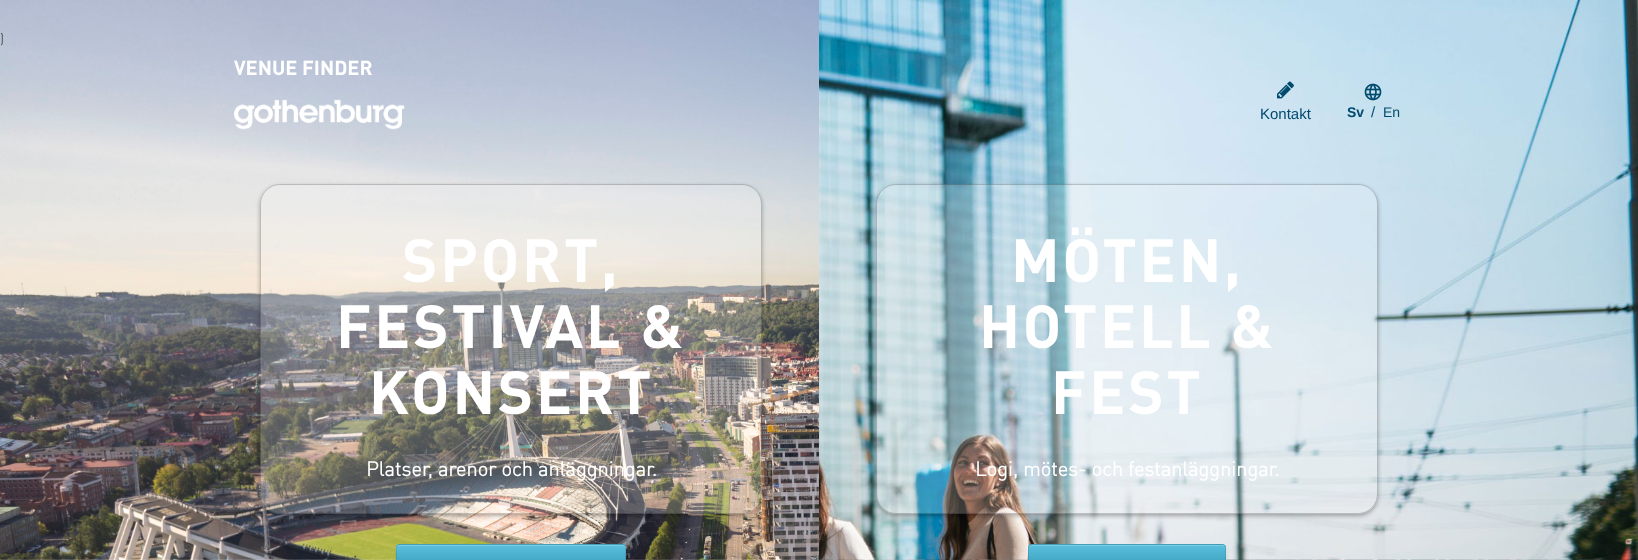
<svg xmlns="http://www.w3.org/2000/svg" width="1638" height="560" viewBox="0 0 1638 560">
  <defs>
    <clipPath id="clip1"><path d="M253 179H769V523H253ZM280 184H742C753 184 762 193 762 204V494C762 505 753 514 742 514H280C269 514 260 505 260 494V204C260 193 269 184 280 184Z" clip-rule="evenodd"/></clipPath>
    <clipPath id="clip2"><rect x="396" y="544" width="230" height="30" rx="4"/></clipPath>
    <linearGradient id="g1" gradientUnits="userSpaceOnUse" x1="511" y1="545" x2="511" y2="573"><stop offset="0" stop-color="rgb(91,192,222)"/><stop offset="1" stop-color="rgb(47,150,180)"/></linearGradient>
    <clipPath id="clip3"><path d="M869 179H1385V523H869ZM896 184H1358C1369 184 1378 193 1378 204V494C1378 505 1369 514 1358 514H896C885 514 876 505 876 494V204C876 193 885 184 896 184Z" clip-rule="evenodd"/></clipPath>
    <clipPath id="clip4"><rect x="1028" y="544" width="198" height="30" rx="4"/></clipPath>
    <linearGradient id="g2" gradientUnits="userSpaceOnUse" x1="1127" y1="545" x2="1127" y2="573"><stop offset="0" stop-color="rgb(91,192,222)"/><stop offset="1" stop-color="rgb(47,150,180)"/></linearGradient>
  </defs>
  <rect width="100%" height="100%" fill="rgb(255,255,255)"/>
  <image x="0" y="0" width="1638" height="560" href="pic1.png"/>
  <text x="0" y="44" font-family="DIN" font-size="14" font-weight="300" fill="rgb(51,51,51)">)</text>
  <image x="819" y="0" width="819" height="560" href="pic2.png"/>
  <text x="234" y="75" font-family="DIN" font-size="20" font-weight="bold" fill="rgb(255,255,255)">VENUE FINDER</text>
  <image x="234" y="99" width="171" height="31" href="pic3.png"/>
  <image x="1277" y="81" width="17" height="18" href="pic4.png"/>
  <text x="1260" y="119" font-family="Liberation Sans" font-size="15" fill="rgb(0,74,110)">Kontakt</text>
  <image x="1364" y="83" width="18" height="18" href="pic5.png"/>
  <text x="1347" y="117" font-family="Liberation Sans" font-size="14" font-weight="bold" fill="rgb(0,74,110)">Sv</text>
  <text x="1371" y="117" font-family="Liberation Sans" font-size="15" fill="rgb(0,74,110)">/</text>
  <text x="1383" y="117" font-family="Liberation Sans" font-size="14" fill="rgb(0,74,110)">En</text>
  <g clip-path="url(#clip1)">
    <rect x="260" y="186" width="502" height="330" rx="20" fill="rgba(0,0,0,0.3)" filter="blur(2px)"/>
  </g>
  <rect x="260" y="184" width="502" height="330" rx="20" fill="rgba(255,255,255,0.2)"/>
  <rect x="260.5" y="184.5" width="501" height="329" rx="19.5" fill="none" stroke="rgba(0,0,0,0.2)"/>
  <g font-family="DIN" font-size="60" font-weight="bold" letter-spacing="2.75" fill="rgb(255,255,255)">
    <text x="402" y="282">SPORT,</text>
    <text x="336" y="348">FESTIVAL &amp;</text>
    <text x="369" y="414">KONSERT</text>
  </g>
  <text x="366" y="476" font-family="'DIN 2'" font-size="20" font-weight="bold" fill="rgb(255,255,255)">Platser, arenor och anläggningar.</text>
  <rect x="396" y="544" width="230" height="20" rx="4" fill="rgb(73,175,205)"/>
  <g clip-path="url(#clip2)">
    <rect x="396" y="545" width="230" height="15" fill="url(#g1)"/>
  </g>
  <path d="M400 546H622C624 546 625 547 625 549V548C625 546 624 545 622 545H400C398 545 397 546 397 548V549C397 547 398 546 400 546Z" fill="rgb(123,204,228)"/>
  <path d="M397.5 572.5C395 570 396.5 558.5 396.5 555.5C396.5 552.5 395 544.5 400 544.5H622C627 544.5 625.5 552.5 625.5 555.5C625.5 558.5 627 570 624.5 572.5" fill="none" stroke="rgba(0,0,0,0.1)"/>
  <g clip-path="url(#clip3)">
    <rect x="876" y="186" width="502" height="330" rx="20" fill="rgba(0,0,0,0.3)" filter="blur(2px)"/>
  </g>
  <rect x="876" y="184" width="502" height="330" rx="20" fill="rgba(255,255,255,0.2)"/>
  <rect x="876.5" y="184.5" width="501" height="329" rx="19.5" fill="none" stroke="rgba(0,0,0,0.2)"/>
  <g font-family="DIN" font-size="60" font-weight="bold" letter-spacing="2.75" fill="rgb(255,255,255)">
    <text x="1011" y="282">MÖTEN,</text>
    <text x="979" y="348">HOTELL &amp;</text>
    <text x="1051" y="414">FEST</text>
  </g>
  <text x="975" y="476" font-family="'DIN 2'" font-size="20" font-weight="bold" fill="rgb(255,255,255)">Logi, mötes- och festanläggningar.</text>
  <rect x="1028" y="544" width="198" height="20" rx="4" fill="rgb(73,175,205)"/>
  <g clip-path="url(#clip4)">
    <rect x="1028" y="545" width="198" height="15" fill="url(#g2)"/>
  </g>
  <path d="M1032 546H1222C1224 546 1225 547 1225 549C1225 547 1224 545 1222 545H1032C1030 545 1029 547 1029 549C1029 547 1030 546 1032 546Z" fill="rgb(123,204,228)"/>
  <path d="M1029.5 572.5C1027.5 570.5 1028.5 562 1028.5 559V551.5C1028.5 549 1028 544.5 1032 544.5H1222C1226 544.5 1225.5 549 1225.5 551.5V559C1225.5 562 1226.5 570.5 1224.5 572.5" fill="none" stroke="rgba(0,0,0,0.1)"/>
</svg>
